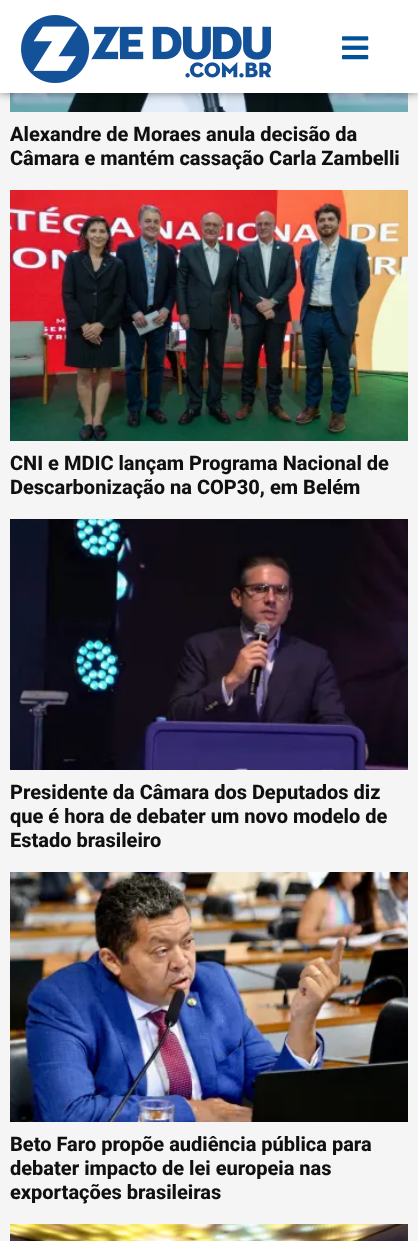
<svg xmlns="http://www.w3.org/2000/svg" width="418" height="1241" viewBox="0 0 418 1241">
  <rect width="100%" height="100%" fill="rgb(245,245,245)"/>
  <image x="10" y="93" width="398" height="19" href="pic3.png"/>
  <rect x="0" y="0" width="418" height="93" fill="rgba(0,0,0,0.5)" filter="blur(5px)"/>
  <rect x="0" y="0" width="418" height="93" fill="rgb(255,255,255)"/>
  <image x="21" y="15" width="250" height="68" href="pic1.png"/>
  <image x="342" y="36" width="27" height="24" href="pic2.png"/>
  <g font-family="Roboto" font-size="20" font-weight="800" fill="rgb(16,16,16)">
    <text>
      <tspan x="10" y="141">Alexandre de Moraes anula decisão da</tspan>
      <tspan x="10" y="165">Câmara e mantém cassação Carla Zambelli</tspan>
    </text>
  </g>
  <image x="10" y="190" width="398" height="251" href="pic4.png"/>
  <g font-family="Roboto" font-size="20" font-weight="800" fill="rgb(16,16,16)">
    <text>
      <tspan x="10" y="470">CNI e MDIC lançam Programa Nacional de</tspan>
      <tspan x="10" y="494">Descarbonização na COP30, em Belém</tspan>
    </text>
  </g>
  <image x="10" y="519" width="398" height="251" href="pic5.png"/>
  <g font-family="Roboto" font-size="20" font-weight="800" fill="rgb(16,16,16)">
    <text>
      <tspan x="10" y="799">Presidente da Câmara dos Deputados diz</tspan>
      <tspan x="10" y="823">que é hora de debater um novo modelo de</tspan>
      <tspan x="10" y="847">Estado brasileiro</tspan>
    </text>
  </g>
  <image x="10" y="872" width="398" height="250" href="pic6.png"/>
  <g font-family="Roboto" font-size="20" font-weight="800" fill="rgb(16,16,16)">
    <text>
      <tspan x="10" y="1151">Beto Faro propõe audiência pública para</tspan>
      <tspan x="10" y="1175">debater impacto de lei europeia nas</tspan>
      <tspan x="10" y="1199">exportações brasileiras</tspan>
    </text>
  </g>
  <image x="10" y="1224" width="398" height="17" href="pic7.png"/>
</svg>
